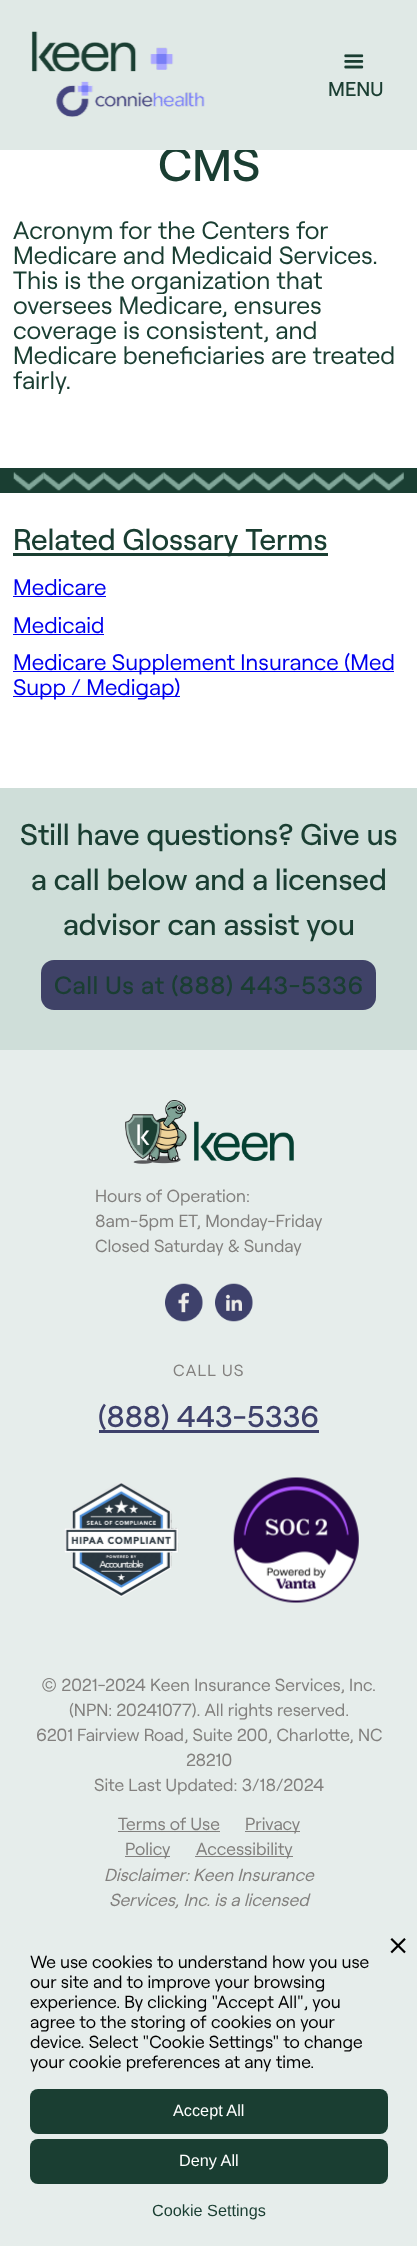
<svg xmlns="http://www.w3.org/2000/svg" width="417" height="2246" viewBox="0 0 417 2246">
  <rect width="100%" height="100%" fill="rgb(255,255,255)"/>
  <text x="158" y="181" font-family="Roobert" font-size="47.5" font-weight="500" fill="rgb(26,62,50)">CMS</text>
  <rect x="0" y="0" width="417" height="150" fill="rgb(224,233,230)"/>
  <image x="31" y="31" width="174" height="86" href="pic1.png"/>
  <image x="344" y="54" width="20" height="15" href="pic2.png"/>
  <text x="328" y="96" font-family="Roobert" font-size="20" font-weight="500" fill="rgb(26,62,50)">MENU</text>
  <g font-family="Roobert" font-size="25" fill="rgb(26,62,50)">
    <text>
      <tspan x="13" y="239">Acronym for the Centers for</tspan>
      <tspan x="13" y="264">Medicare and Medicaid Services.</tspan>
      <tspan x="13" y="289">This is the organization that</tspan>
      <tspan x="13" y="314">oversees Medicare, ensures</tspan>
      <tspan x="13" y="339">coverage is consistent, and</tspan>
      <tspan x="13" y="364">Medicare beneficiaries are treated</tspan>
      <tspan x="13" y="389">fairly.</tspan>
    </text>
  </g>
  <rect x="0" y="468" width="417" height="25" fill="rgb(26,62,50)"/>
  <image x="13" y="472" width="31" height="19" href="pic3.png"/>
  <image x="43" y="472" width="31" height="19" href="pic4.png"/>
  <image x="73" y="472" width="31" height="19" href="pic4.png"/>
  <image x="103" y="472" width="31" height="19" href="pic5.png"/>
  <image x="133" y="472" width="31" height="19" href="pic5.png"/>
  <image x="163" y="472" width="31" height="19" href="pic4.png"/>
  <image x="193" y="472" width="31" height="19" href="pic4.png"/>
  <image x="223" y="472" width="31" height="19" href="pic4.png"/>
  <image x="253" y="472" width="31" height="19" href="pic4.png"/>
  <image x="283" y="472" width="31" height="19" href="pic5.png"/>
  <image x="313" y="472" width="31" height="19" href="pic4.png"/>
  <image x="343" y="472" width="31" height="19" href="pic5.png"/>
  <image x="373" y="472" width="31" height="19" href="pic5.png"/>
  <rect x="13" y="553" width="315" height="3" fill="rgb(26,62,50)"/>
  <text x="13" y="550" font-family="Roobert" font-size="30" font-weight="500" fill="rgb(26,62,50)">Related Glossary Terms</text>
  <text x="13" y="595" font-family="Roobert" font-size="22.5" fill="rgb(0,0,238)">Medicare</text>
  <rect x="13" y="596" width="93" height="1" fill="rgb(0,0,238)"/>
  <text x="13" y="633" font-family="Roobert" font-size="22.5" fill="rgb(0,0,238)">Medicaid</text>
  <rect x="13" y="634" width="91" height="1" fill="rgb(0,0,238)"/>
  <rect x="13" y="671" width="381" height="1" fill="rgb(0,0,238)"/>
  <text x="13" y="670" font-family="Roobert" font-size="22.5" fill="rgb(0,0,238)">Medicare Supplement Insurance (Med</text>
  <rect x="13" y="696" width="167" height="1" fill="rgb(0,0,238)"/>
  <text x="13" y="695" font-family="Roobert" font-size="22.5" fill="rgb(0,0,238)">Supp / Medigap)</text>
  <rect x="0" y="788" width="417" height="262" fill="rgb(207,222,217)"/>
  <g font-family="Roobert" font-size="30" font-weight="500" fill="rgb(26,62,50)">
    <text x="20" y="845">Still have questions? Give us</text>
    <text x="31" y="890">a call below and a licensed</text>
    <text x="63" y="935">advisor can assist you</text>
  </g>
  <rect x="41" y="960" width="335" height="50" rx="13" fill="rgb(63,66,103)"/>
  <text x="54" y="994" font-family="Roobert" font-size="25" font-weight="500" letter-spacing="0.6" fill="rgb(26,62,50)">Call Us at (888) 443-5336</text>
  <rect x="0" y="1050" width="417" height="1196" fill="rgb(230,237,235)"/>
  <image x="125" y="1100" width="169" height="64" href="pic6.png"/>
  <g font-family="Roobert" font-size="17.5" fill="rgb(130,128,126)">
    <text>
      <tspan x="95" y="1202">Hours of Operation:</tspan>
      <tspan x="95" y="1227">8am-5pm ET, Monday-Friday</tspan>
      <tspan x="95" y="1252">Closed Saturday &amp; Sunday</tspan>
    </text>
  </g>
  <image x="165" y="1283" width="38" height="39" href="pic7.png"/>
  <image x="215" y="1283" width="38" height="39" href="pic8.png"/>
  <text x="173" y="1376" font-family="Roobert" font-size="16.25" letter-spacing="1.25" fill="rgb(130,128,126)">CALL US</text>
  <rect x="99" y="1430" width="220" height="3" fill="rgb(62,65,107)"/>
  <text x="98" y="1427" font-family="Roobert" font-size="30" font-weight="500" fill="rgb(62,65,107)">(888) 443-5336</text>
  <image x="64" y="1481" width="115" height="116" href="pic9.png"/>
  <image x="233" y="1477" width="126" height="126" href="pic10.png"/>
  <g font-family="Roobert" font-size="17.5" fill="rgb(130,128,126)">
    <text x="41" y="1691">© 2021-2024 Keen Insurance Services, Inc.</text>
    <text x="69" y="1716">(NPN: 20241077). All rights reserved.</text>
    <text x="36" y="1741">6201 Fairview Road, Suite 200, Charlotte, NC</text>
    <text x="186" y="1766">28210</text>
    <text x="94" y="1791">Site Last Updated: 3/18/2024</text>
    <text x="118" y="1830">Terms of Use</text>
  </g>
  <rect x="118" y="1831" width="102" height="1" fill="rgb(130,128,126)"/>
  <rect x="245" y="1831" width="55" height="1" fill="rgb(130,128,126)"/>
  <text x="245" y="1830" font-family="Roobert" font-size="17.5" fill="rgb(130,128,126)">Privacy</text>
  <rect x="125" y="1856" width="45" height="1" fill="rgb(130,128,126)"/>
  <text x="125" y="1855" font-family="Roobert" font-size="17.5" fill="rgb(130,128,126)">Policy</text>
  <rect x="195" y="1856" width="98" height="1" fill="rgb(130,128,126)"/>
  <text x="196" y="1855" font-family="Roobert" font-size="17.5" fill="rgb(130,128,126)">Accessibility</text>
  <g font-family="Roobert" font-size="17.5" font-style="italic" fill="rgb(130,128,126)">
    <text x="104" y="1881">Disclaimer: Keen Insurance</text>
    <text x="109" y="1906">Services, Inc. is a licensed</text>
  </g>
  <image x="390" y="1938" width="16" height="16" href="pic11.png"/>
  <g font-family="Roobert" font-size="17.5" fill="rgb(0,0,0)">
    <text>
      <tspan x="30" y="1968">We use cookies to understand how you use</tspan>
      <tspan x="30" y="1988">our site and to improve your browsing</tspan>
      <tspan x="30" y="2008">experience. By clicking "Accept All", you</tspan>
      <tspan x="30" y="2028">agree to the storing of cookies on your</tspan>
      <tspan x="30" y="2048">device. Select "Cookie Settings" to change</tspan>
      <tspan x="30" y="2068">your cookie preferences at any time.</tspan>
    </text>
  </g>
  <rect x="30" y="2089" width="358" height="45" rx="8" fill="rgb(26,62,50)"/>
  <text x="173" y="2116" font-family="Liberation Sans" font-size="16.25" fill="rgb(255,255,255)">Accept All</text>
  <rect x="30" y="2139" width="358" height="45" rx="8" fill="rgb(26,62,50)"/>
  <text x="179" y="2166" font-family="Liberation Sans" font-size="16.25" fill="rgb(255,255,255)">Deny All</text>
  <text x="152" y="2216" font-family="Liberation Sans" font-size="16.25" fill="rgb(26,62,50)">Cookie Settings</text>
</svg>
